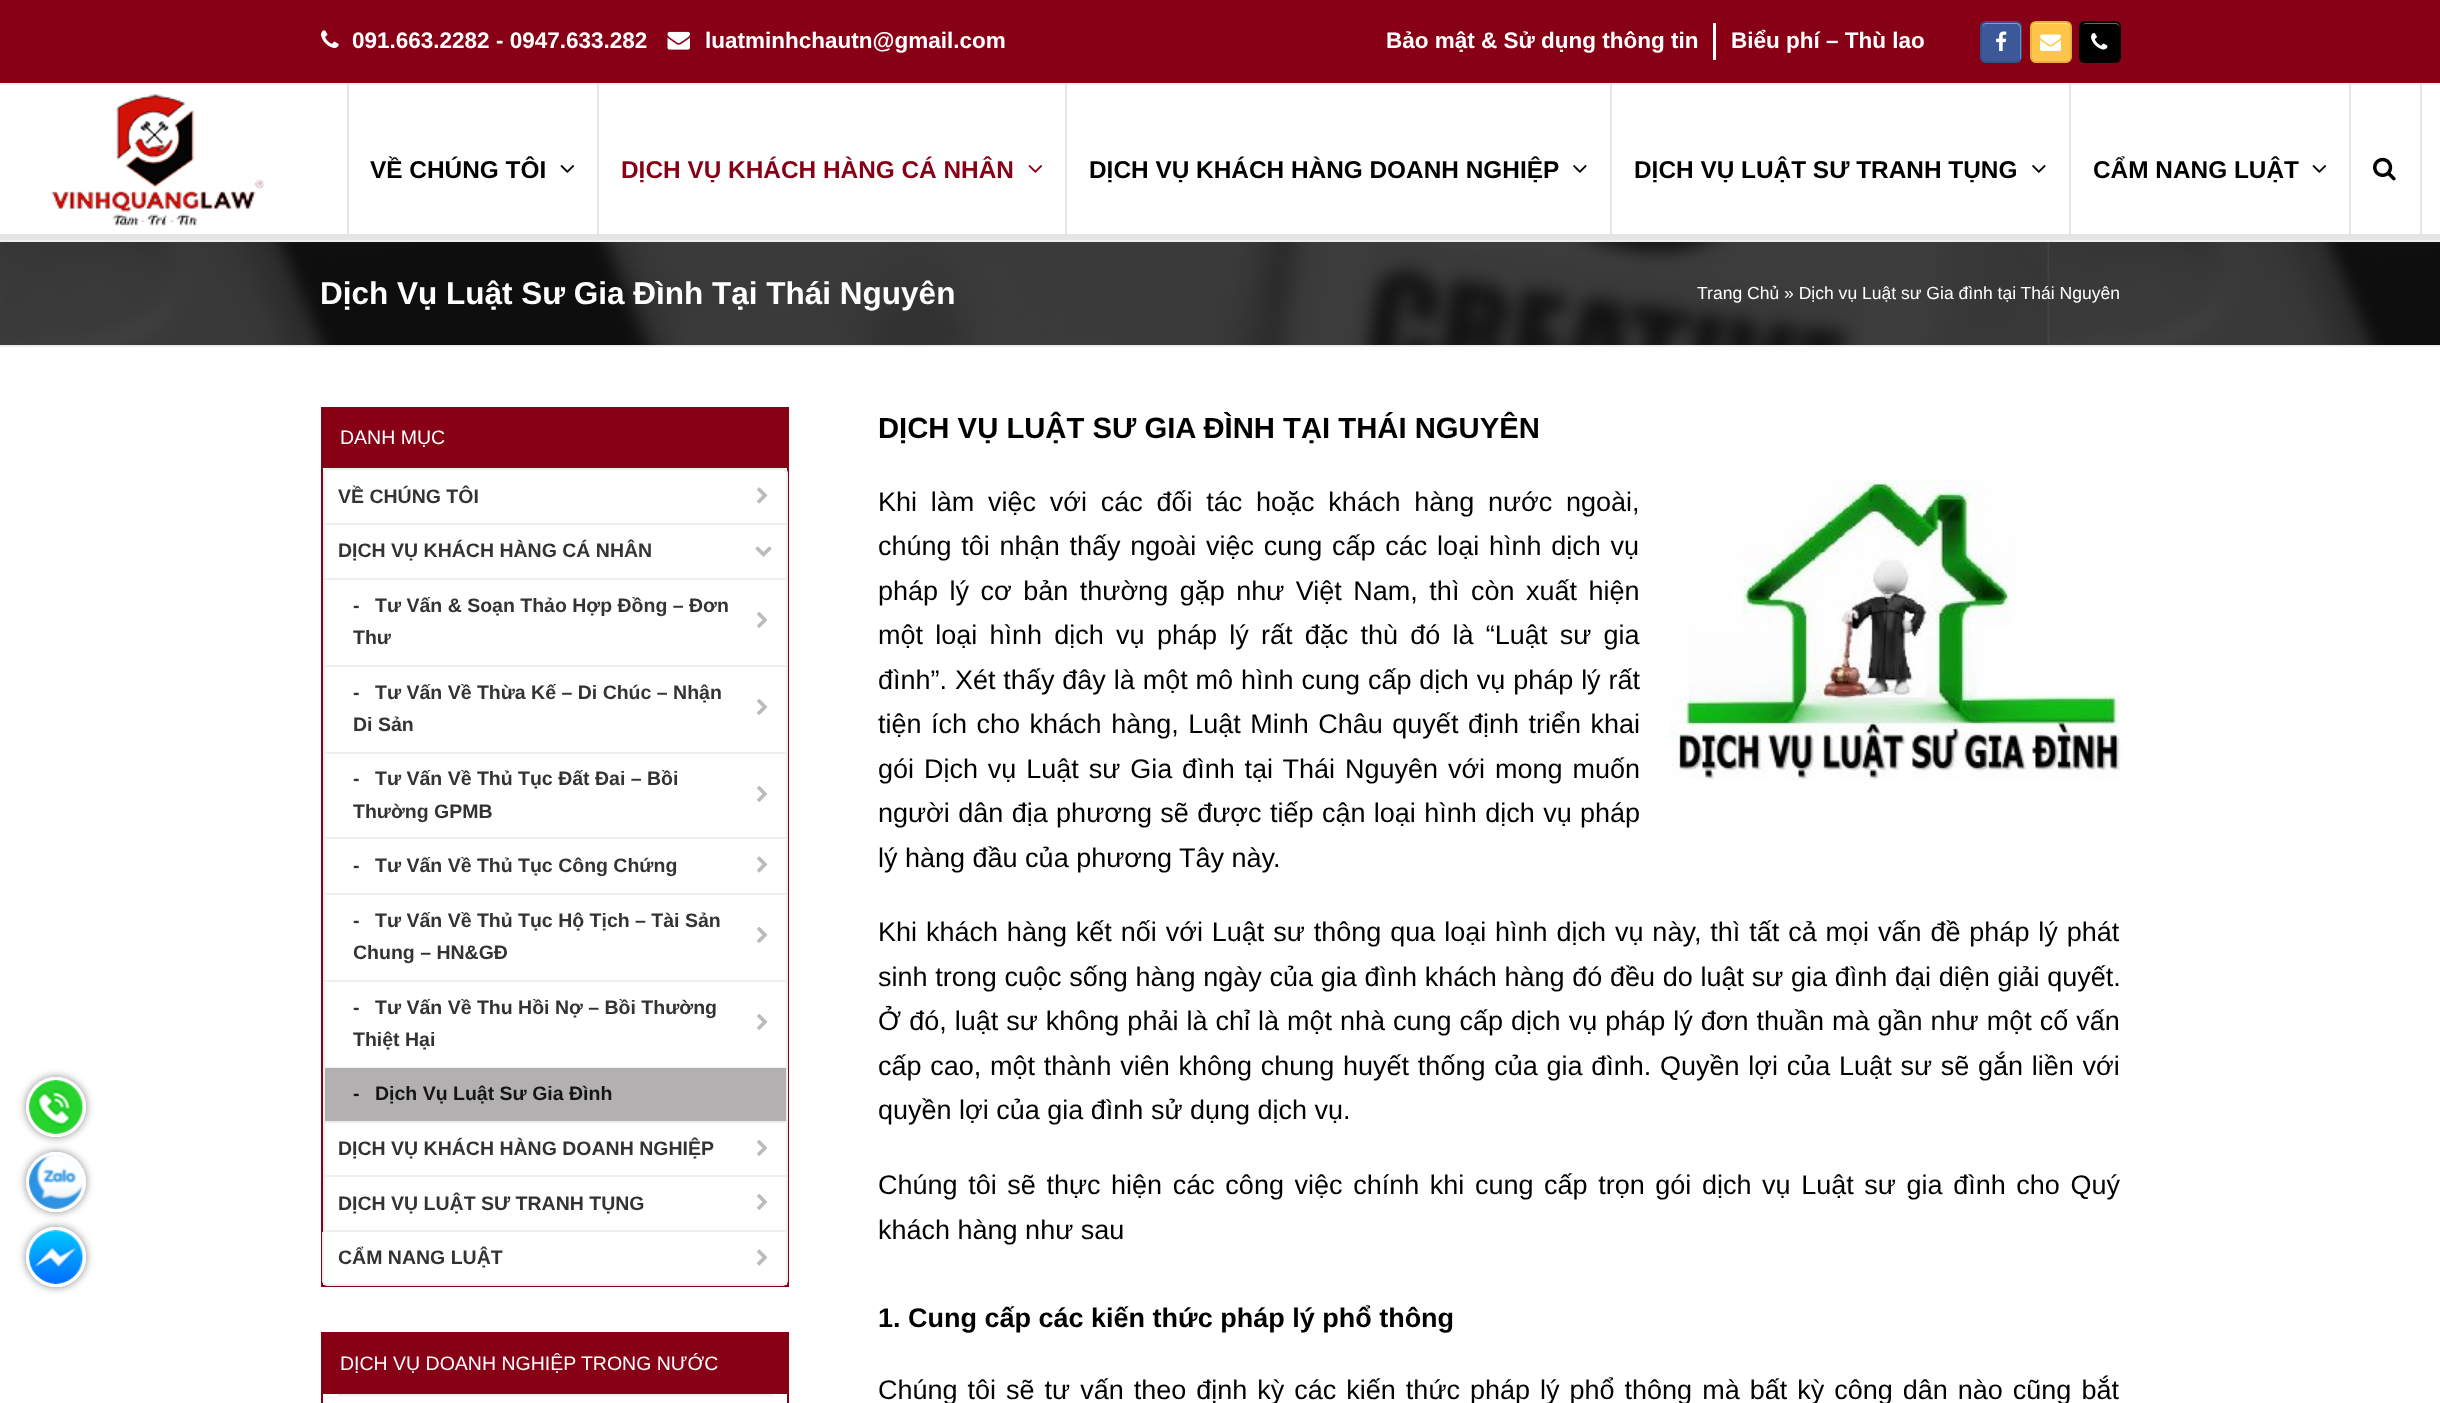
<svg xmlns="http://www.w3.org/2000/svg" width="2440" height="1403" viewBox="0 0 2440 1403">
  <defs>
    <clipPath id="clip1"><path d="M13 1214H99V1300H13ZM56 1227C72.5 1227 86 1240.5 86 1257C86 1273.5 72.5 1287 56 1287C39.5 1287 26 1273.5 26 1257C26 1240.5 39.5 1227 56 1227Z" clip-rule="evenodd"/></clipPath>
  </defs>
  <rect width="100%" height="100%" fill="rgb(255,255,255)"/>
  <rect x="26" y="1077" width="60" height="60" rx="30" fill="rgb(136,136,136)" filter="blur(4px)"/>
  <circle cx="56" cy="1107" r="30" fill="rgb(255,255,255)"/>
  <image x="29" y="1080" width="54" height="54" href="pic1.png"/>
  <circle cx="56" cy="1107" r="28.5" fill="none" stroke="rgb(255,255,255)" stroke-width="3"/>
  <rect x="26" y="1152" width="60" height="60" rx="30" fill="rgb(136,136,136)" filter="blur(4px)"/>
  <circle cx="56" cy="1182" r="30" fill="rgb(255,255,255)"/>
  <image x="29" y="1155" width="54" height="54" href="pic2.png"/>
  <circle cx="56" cy="1182" r="28.5" fill="none" stroke="rgb(255,255,255)" stroke-width="3"/>
  <g clip-path="url(#clip1)">
    <rect x="26" y="1227" width="60" height="60" rx="30" fill="rgb(136,136,136)" filter="blur(4px)"/>
  </g>
  <image x="29" y="1230" width="54" height="54" href="pic3.png"/>
  <circle cx="56" cy="1257" r="28.5" fill="none" stroke="rgb(255,255,255)" stroke-width="3"/>
  <rect x="0" y="0" width="2440" height="83" fill="rgb(136,0,21)"/>
  <rect x="0" y="83" width="2440" height="2" fill="rgb(238,238,238)"/>
  <image x="321" y="30" width="18" height="18" href="pic4.png"/>
  <text x="352" y="48" font-family="Liberation Sans" font-size="22.5" font-weight="bold" fill="rgb(255,255,255)">091.663.2282 - 0947.633.282</text>
  <image x="667" y="31" width="23" height="19" href="pic5.png"/>
  <text x="705" y="48" font-family="Liberation Sans" font-size="22.5" font-weight="bold" fill="rgb(255,255,255)">luatminhchautn@gmail.com</text>
  <rect x="1713" y="23" width="3" height="37" fill="rgb(255,255,255)"/>
  <g font-family="Liberation Sans" font-size="22.5" font-weight="bold" fill="rgb(255,255,255)">
    <text x="1386" y="48">Bảo mật &amp; Sử dụng thông tin</text>
    <text x="1731" y="48">Biểu phí – Thù lao</text>
  </g>
  <rect x="1980" y="21" width="42" height="42" rx="6" fill="rgb(59,89,152)"/>
  <path d="M1986 24H2016C2018 24 2020 26 2020 28V58C2020 59 2020 60 2019.5 60.5C2020.5 60 2021 58.5 2021 57V28C2021 25 2019 23 2016 23H1987C1984 23 1982 25 1982 28C1982 26 1984 24 1986 24Z" fill="rgb(137,155,193)"/>
  <rect x="1981" y="22" width="40" height="40" rx="5" fill="none" stroke="rgba(0,0,0,0.1)" stroke-width="2"/>
  <image x="1996" y="31" width="11" height="20" href="pic6.png"/>
  <rect x="2030" y="21" width="42" height="42" rx="6" fill="rgb(255,197,72)"/>
  <path d="M2036 24H2066C2068 24 2070 26 2070 28C2070 25 2068 23 2065 23H2036C2033 23 2031 25 2031 28C2031 26 2033 24 2036 24Z" fill="rgb(255,220,145)"/>
  <rect x="2031" y="22" width="40" height="40" rx="5" fill="none" stroke="rgba(0,0,0,0.1)" stroke-width="2"/>
  <image x="2040" y="34" width="21" height="17" href="pic7.png"/>
  <rect x="2079" y="21" width="42" height="42" rx="6" fill="rgb(0,0,0)"/>
  <path d="M2085 24H2115C2117 24 2120 26 2120 28C2120 25 2118 23 2115 23H2086C2084.5 23 2083 24 2082 25C2083 24.5 2084 24 2085 24Z" fill="rgb(102,102,102)"/>
  <rect x="2080" y="22" width="40" height="40" rx="5" fill="none" stroke="rgba(0,0,0,0.1)" stroke-width="2"/>
  <image x="2091" y="33" width="17" height="17" href="pic8.png"/>
  <rect x="0" y="234" width="2440" height="6" fill="rgb(229,229,229)"/>
  <image x="51" y="94" width="214" height="132" href="pic9.png"/>
  <rect x="597" y="83" width="2" height="151" fill="rgb(229,229,229)"/>
  <rect x="347" y="83" width="2" height="151" fill="rgb(229,229,229)"/>
  <text x="370" y="178" font-family="Liberation Sans" font-size="24.4" font-weight="bold" fill="rgb(0,0,0)">VỀ CHÚNG TÔI</text>
  <image x="560" y="165" width="15" height="8" href="pic10.png"/>
  <rect x="1065" y="83" width="2" height="151" fill="rgb(229,229,229)"/>
  <text x="621" y="178" font-family="Liberation Sans" font-size="24.4" font-weight="bold" fill="rgb(136,0,21)">DỊCH VỤ KHÁCH HÀNG CÁ NHÂN</text>
  <image x="1028" y="165" width="15" height="8" href="pic11.png"/>
  <rect x="1610" y="83" width="2" height="151" fill="rgb(229,229,229)"/>
  <text x="1089" y="178" font-family="Liberation Sans" font-size="24.4" font-weight="bold" fill="rgb(0,0,0)">DỊCH VỤ KHÁCH HÀNG DOANH NGHIỆP</text>
  <image x="1573" y="165" width="14" height="8" href="pic12.png"/>
  <rect x="2069" y="83" width="2" height="151" fill="rgb(229,229,229)"/>
  <text x="1634" y="178" font-family="Liberation Sans" font-size="24.4" font-weight="bold" fill="rgb(0,0,0)">DỊCH VỤ LUẬT SƯ TRANH TỤNG</text>
  <image x="2032" y="165" width="14" height="8" href="pic12.png"/>
  <rect x="2349" y="83" width="2" height="151" fill="rgb(229,229,229)"/>
  <text x="2093" y="178" font-family="Liberation Sans" font-size="24.4" font-weight="bold" fill="rgb(0,0,0)">CẨM NANG LUẬT</text>
  <image x="2312" y="165" width="15" height="8" href="pic10.png"/>
  <rect x="2420" y="83" width="2" height="151" fill="rgb(229,229,229)"/>
  <image x="2373" y="157" width="23" height="24" href="pic13.png"/>
  <image x="0" y="242" width="2440" height="103" href="pic14.png"/>
  <rect x="0" y="240" width="2440" height="2" fill="rgb(238,238,238)"/>
  <rect x="0" y="345" width="2440" height="2" fill="rgb(238,238,238)"/>
  <text x="320" y="304" font-family="Liberation Sans" font-size="31.5" font-weight="bold" fill="rgb(255,255,255)">Dịch Vụ Luật Sư Gia Đình Tại Thái Nguyên</text>
  <text x="1697" y="299" font-family="Liberation Sans" font-size="17.55" fill="rgb(255,255,255)">Trang Chủ » Dịch vụ Luật sư Gia đình tại Thái Nguyên</text>
  <rect x="322" y="408" width="466" height="878" fill="none" stroke="rgb(136,0,21)" stroke-width="2"/>
  <rect x="323" y="409" width="464" height="59" fill="rgb(136,0,21)"/>
  <text x="340" y="444" font-family="Liberation Sans" font-size="19.5" fill="rgb(255,255,255)">DANH MỤC</text>
  <path d="M328 469H783C785 469 787 471 787 473V524H324V473C324 471 326 469 328 469Z" fill="none" stroke="rgb(238,238,238)" stroke-width="2"/>
  <text x="338" y="503" font-family="Liberation Sans" font-size="19.5" font-weight="bold" fill="rgb(51,51,51)">VỀ CHÚNG TÔI</text>
  <image x="757" y="487" width="11" height="17" href="pic15.png"/>
  <rect x="786" y="525" width="2" height="54" fill="rgb(238,238,238)"/>
  <rect x="323" y="578" width="465" height="2" fill="rgb(238,238,238)"/>
  <rect x="323" y="525" width="2" height="54" fill="rgb(238,238,238)"/>
  <text x="338" y="557" font-family="Liberation Sans" font-size="19.5" font-weight="bold" fill="rgb(51,51,51)">DỊCH VỤ KHÁCH HÀNG CÁ NHÂN</text>
  <image x="755" y="546" width="17" height="11" href="pic16.png"/>
  <rect x="786" y="579" width="2" height="87" fill="rgb(238,238,238)"/>
  <rect x="323" y="665" width="465" height="2" fill="rgb(238,238,238)"/>
  <rect x="323" y="579" width="2" height="87" fill="rgb(238,238,238)"/>
  <g font-family="Liberation Sans" font-size="19.5" font-weight="bold" fill="rgb(51,51,51)">
    <text x="353" y="612">-</text>
    <text x="375" y="612">Tư Vấn &amp; Soạn Thảo Hợp Đồng – Đơn</text>
  </g>
  <image x="757" y="612" width="11" height="16" href="pic17.png"/>
  <text x="353" y="644" font-family="Liberation Sans" font-size="19.5" font-weight="bold" fill="rgb(51,51,51)">Thư</text>
  <rect x="786" y="666" width="2" height="87" fill="rgb(238,238,238)"/>
  <rect x="323" y="752" width="465" height="2" fill="rgb(238,238,238)"/>
  <rect x="323" y="666" width="2" height="87" fill="rgb(238,238,238)"/>
  <g font-family="Liberation Sans" font-size="19.5" font-weight="bold" fill="rgb(51,51,51)">
    <text x="353" y="699">-</text>
    <text x="375" y="699">Tư Vấn Về Thừa Kế – Di Chúc – Nhận</text>
  </g>
  <image x="757" y="699" width="11" height="16" href="pic17.png"/>
  <text x="353" y="731" font-family="Liberation Sans" font-size="19.5" font-weight="bold" fill="rgb(51,51,51)">Di Sản</text>
  <rect x="786" y="753" width="2" height="141" fill="rgb(238,238,238)"/>
  <rect x="323" y="837" width="465" height="2" fill="rgb(238,238,238)"/>
  <rect x="323" y="753" width="2" height="86" fill="rgb(238,238,238)"/>
  <g font-family="Liberation Sans" font-size="19.5" font-weight="bold" fill="rgb(51,51,51)">
    <text x="353" y="785">-</text>
    <text x="375" y="785">Tư Vấn Về Thủ Tục Đất Đai – Bồi</text>
  </g>
  <image x="757" y="786" width="11" height="16" href="pic17.png"/>
  <text x="353" y="818" font-family="Liberation Sans" font-size="19.5" font-weight="bold" fill="rgb(51,51,51)">Thường GPMB</text>
  <rect x="323" y="893" width="465" height="2" fill="rgb(238,238,238)"/>
  <rect x="323" y="839" width="2" height="55" fill="rgb(238,238,238)"/>
  <g font-family="Liberation Sans" font-size="19.5" font-weight="bold" fill="rgb(51,51,51)">
    <text x="353" y="872">-</text>
    <text x="375" y="872">Tư Vấn Về Thủ Tục Công Chứng</text>
  </g>
  <image x="757" y="856" width="11" height="17" href="pic15.png"/>
  <rect x="786" y="894" width="2" height="87" fill="rgb(238,238,238)"/>
  <rect x="323" y="980" width="465" height="2" fill="rgb(238,238,238)"/>
  <rect x="323" y="894" width="2" height="87" fill="rgb(238,238,238)"/>
  <g font-family="Liberation Sans" font-size="19.5" font-weight="bold" fill="rgb(51,51,51)">
    <text x="353" y="927">-</text>
    <text x="375" y="927">Tư Vấn Về Thủ Tục Hộ Tịch – Tài Sản</text>
  </g>
  <image x="757" y="927" width="11" height="16" href="pic17.png"/>
  <text x="353" y="959" font-family="Liberation Sans" font-size="19.5" font-weight="bold" fill="rgb(51,51,51)">Chung – HN&amp;GĐ</text>
  <rect x="786" y="981" width="2" height="141" fill="rgb(238,238,238)"/>
  <rect x="323" y="1067" width="465" height="1" fill="rgb(238,238,238)"/>
  <rect x="323" y="981" width="2" height="87" fill="rgb(238,238,238)"/>
  <g font-family="Liberation Sans" font-size="19.5" font-weight="bold" fill="rgb(51,51,51)">
    <text x="353" y="1014">-</text>
    <text x="375" y="1014">Tư Vấn Về Thu Hồi Nợ – Bồi Thường</text>
  </g>
  <image x="757" y="1014" width="11" height="16" href="pic17.png"/>
  <text x="353" y="1046" font-family="Liberation Sans" font-size="19.5" font-weight="bold" fill="rgb(51,51,51)">Thiệt Hại</text>
  <rect x="325" y="1068" width="461" height="53" fill="rgb(178,176,176)"/>
  <rect x="323" y="1121" width="465" height="2" fill="rgb(238,238,238)"/>
  <rect x="323" y="1068" width="2" height="54" fill="rgb(238,238,238)"/>
  <g font-family="Liberation Sans" font-size="19.5" font-weight="bold" fill="rgb(22,21,21)">
    <text x="353" y="1100">-</text>
    <text x="375" y="1100">Dịch Vụ Luật Sư Gia Đình</text>
  </g>
  <rect x="786" y="1122" width="2" height="54" fill="rgb(238,238,238)"/>
  <rect x="323" y="1175" width="465" height="2" fill="rgb(238,238,238)"/>
  <rect x="323" y="1122" width="2" height="54" fill="rgb(238,238,238)"/>
  <text x="338" y="1155" font-family="Liberation Sans" font-size="19.5" font-weight="bold" fill="rgb(51,51,51)">DỊCH VỤ KHÁCH HÀNG DOANH NGHIỆP</text>
  <image x="757" y="1140" width="11" height="16" href="pic17.png"/>
  <rect x="786" y="1176" width="2" height="56" fill="rgb(238,238,238)"/>
  <rect x="323" y="1230" width="465" height="2" fill="rgb(238,238,238)"/>
  <rect x="323" y="1176" width="2" height="56" fill="rgb(238,238,238)"/>
  <text x="338" y="1210" font-family="Liberation Sans" font-size="19.5" font-weight="bold" fill="rgb(51,51,51)">DỊCH VỤ LUẬT SƯ TRANH TỤNG</text>
  <image x="757" y="1194" width="11" height="16" href="pic17.png"/>
  <path d="M322 1232H788V1281C788 1283 785 1286 783 1286H327C325 1286 322 1283 322 1281ZM324 1232H786V1281C786 1283 785 1284 783 1284H327C325 1284 324 1283 324 1281Z" fill="rgb(238,238,238)" fill-rule="evenodd"/>
  <text x="338" y="1264" font-family="Liberation Sans" font-size="19.5" font-weight="bold" fill="rgb(51,51,51)">CẨM NANG LUẬT</text>
  <image x="757" y="1249" width="11" height="17" href="pic15.png"/>
  <rect x="322" y="1333" width="466" height="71" fill="none" stroke="rgb(136,0,21)" stroke-width="2"/>
  <rect x="323" y="1334" width="464" height="60" fill="rgb(136,0,21)"/>
  <text x="340" y="1370" font-family="Liberation Sans" font-size="19.5" fill="rgb(255,255,255)">DỊCH VỤ DOANH NGHIỆP TRONG NƯỚC</text>
  <rect x="338" y="1394" width="435" height="2" fill="rgb(238,238,238)"/>
  <text x="878" y="438" font-family="Liberation Sans" font-size="29.25" font-weight="bold" fill="rgb(0,0,0)">DỊCH VỤ LUẬT SƯ GIA ĐÌNH TẠI THÁI NGUYÊN</text>
  <text x="878" y="511" word-spacing="6.25" font-family="Liberation Sans" font-size="27" fill="rgb(0,0,0)">Khi làm việc với các đối tác hoặc khách hàng nước ngoài,</text>
  <image x="1671" y="480" width="450" height="300" href="pic18.png"/>
  <g font-family="Liberation Sans" font-size="27" fill="rgb(0,0,0)">
    <text>
      <tspan x="878" y="555" word-spacing="2.25">chúng tôi nhận thấy ngoài việc cung cấp các loại hình dịch vụ</tspan>
      <tspan x="878" y="600" word-spacing="4">pháp lý cơ bản thường gặp như Việt Nam, thì còn xuất hiện</tspan>
      <tspan x="878" y="644" word-spacing="4.75">một loại hình dịch vụ pháp lý rất đặc thù đó là “Luật sư gia</tspan>
      <tspan x="878" y="689" word-spacing="0.4">đình”. Xét thấy đây là một mô hình cung cấp dịch vụ pháp lý rất</tspan>
      <tspan x="878" y="733" word-spacing="2">tiện ích cho khách hàng, Luật Minh Châu quyết định triển khai</tspan>
      <tspan x="878" y="778" word-spacing="2.4">gói Dịch vụ Luật sư Gia đình tại Thái Nguyên với mong muốn</tspan>
      <tspan x="878" y="822" word-spacing="0.9">người dân địa phương sẽ được tiếp cận loại hình dịch vụ pháp</tspan>
      <tspan x="878" y="867">lý hàng đầu của phương Tây này.</tspan>
    </text>
    <text>
      <tspan x="878" y="941" word-spacing="1.4">Khi khách hàng kết nối với Luật sư thông qua loại hình dịch vụ này, thì tất cả mọi vấn đề pháp lý phát</tspan>
      <tspan x="878" y="986" word-spacing="0.2">sinh trong cuộc sống hàng ngày của gia đình khách hàng đó đều do luật sư gia đình đại diện giải quyết.</tspan>
      <tspan x="878" y="1030" word-spacing="0.5">Ở đó, luật sư không phải là chỉ là một nhà cung cấp dịch vụ pháp lý đơn thuần mà gần như một cố vấn</tspan>
      <tspan x="878" y="1075" word-spacing="1.25">cấp cao, một thành viên không chung huyết thống của gia đình. Quyền lợi của Luật sư sẽ gắn liền với</tspan>
      <tspan x="878" y="1119">quyền lợi của gia đình sử dụng dịch vụ.</tspan>
    </text>
    <text>
      <tspan x="878" y="1194" word-spacing="3.1">Chúng tôi sẽ thực hiện các công việc chính khi cung cấp trọn gói dịch vụ Luật sư gia đình cho Quý</tspan>
      <tspan x="878" y="1239">khách hàng như sau</tspan>
    </text>
  </g>
  <text x="878" y="1327" font-family="Liberation Sans" font-size="27" font-weight="bold" fill="rgb(0,0,0)">1. Cung cấp các kiến thức pháp lý phổ thông</text>
  <text x="878" y="1399" word-spacing="2.5" font-family="Liberation Sans" font-size="27" fill="rgb(0,0,0)">Chúng tôi sẽ tư vấn theo định kỳ các kiến thức pháp lý phổ thông mà bất kỳ công dân nào cũng bắt</text>
</svg>
